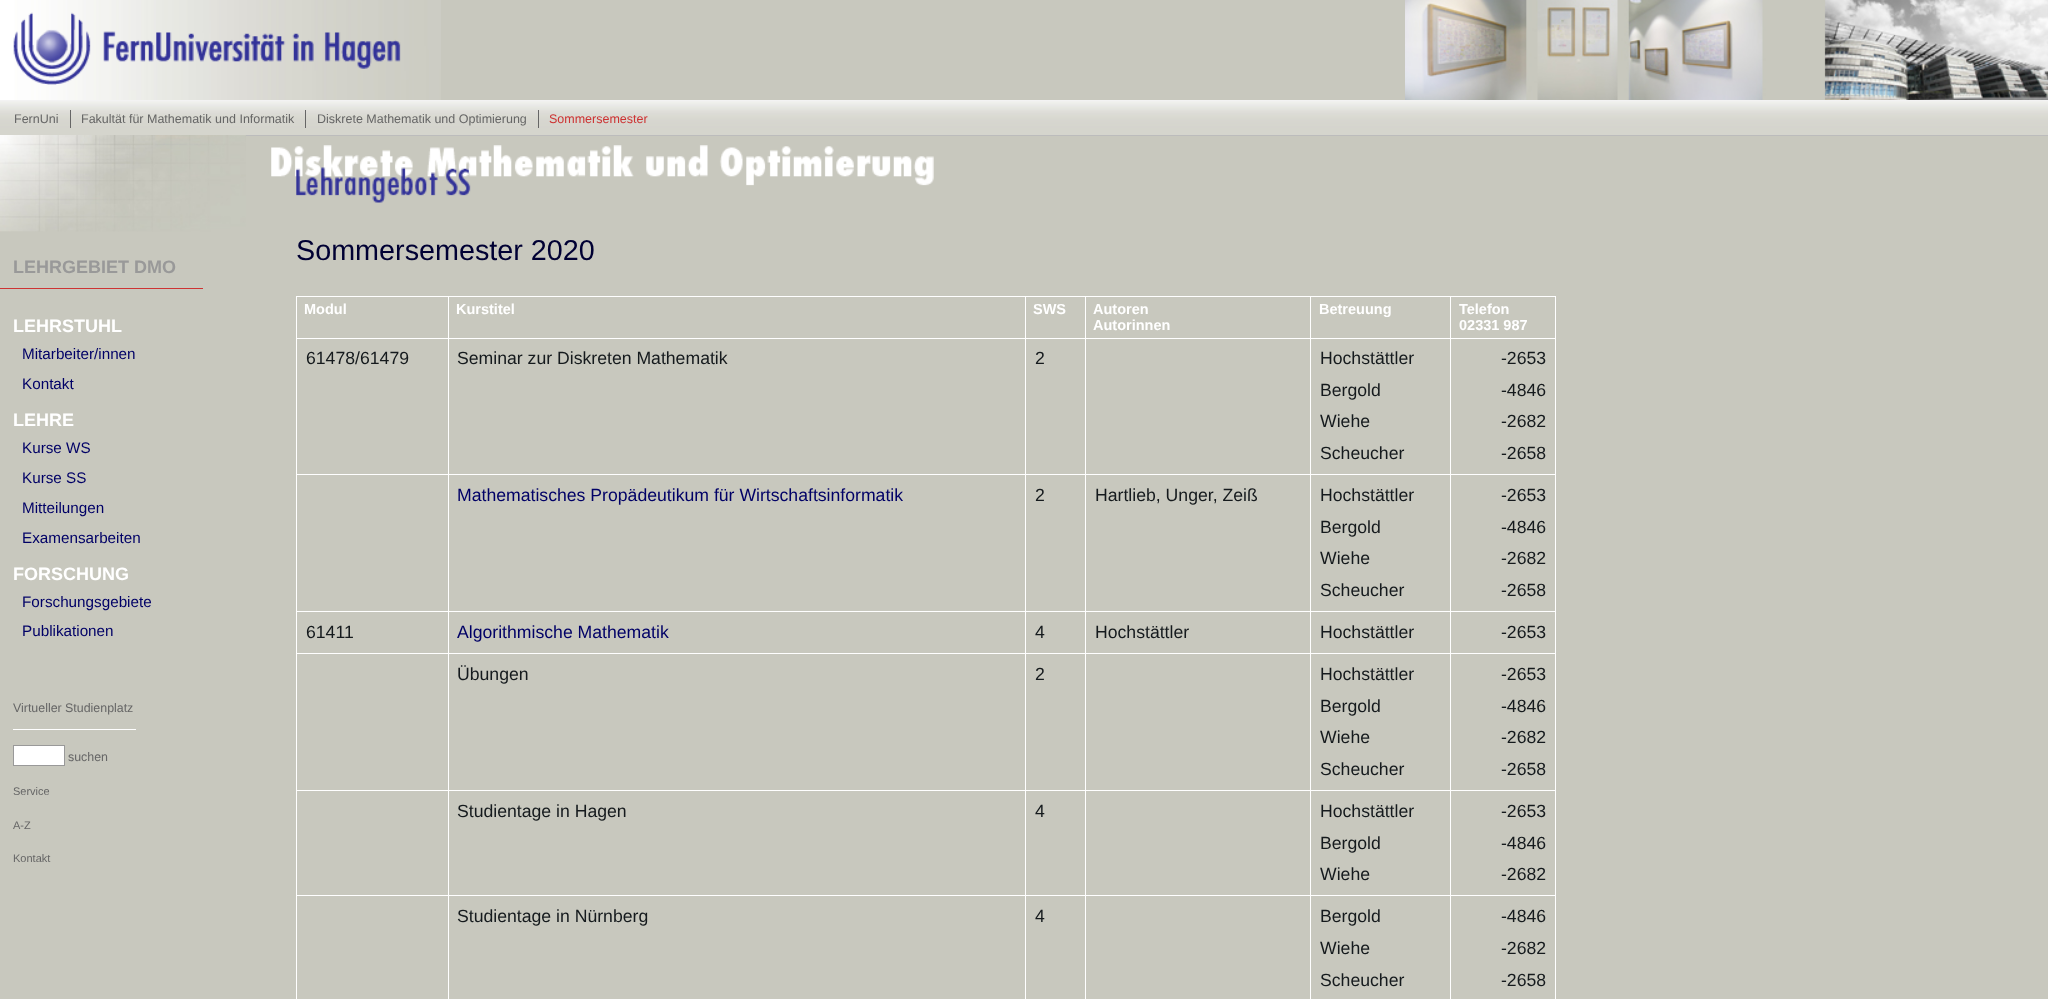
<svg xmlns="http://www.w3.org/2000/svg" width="2048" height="999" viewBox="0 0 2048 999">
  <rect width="100%" height="100%" fill="rgb(200,200,190)"/>
  <image x="1405" y="0" width="643" height="100" href="pic1.png"/>
  <image x="0" y="0" width="441" height="100" href="pic2.png"/>
  <image x="13" y="12" width="388" height="73" href="pic3.png"/>
  <image x="0" y="101" width="2048" height="34" href="pic4.png"/>
  <rect x="0" y="100" width="2048" height="1" fill="rgb(243,243,243)"/>
  <rect x="246" y="135" width="1802" height="1" fill="rgb(188,188,188)"/>
  <text x="14" y="123" font-family="Liberation Sans" font-size="12.5" fill="rgb(102,102,102)">FernUni</text>
  <rect x="70" y="110" width="1" height="18" fill="rgb(102,102,102)"/>
  <text x="81" y="123" font-family="Liberation Sans" font-size="12.5" fill="rgb(102,102,102)">Fakultät für Mathematik und Informatik</text>
  <rect x="305" y="110" width="1" height="18" fill="rgb(102,102,102)"/>
  <text x="317" y="123" font-family="Liberation Sans" font-size="12.5" fill="rgb(102,102,102)">Diskrete Mathematik und Optimierung</text>
  <rect x="538" y="110" width="1" height="18" fill="rgb(102,102,102)"/>
  <text x="549" y="123" font-family="Liberation Sans" font-size="12.5" fill="rgb(205,51,51)">Sommersemester</text>
  <image x="0" y="135" width="246" height="97" href="pic5.png"/>
  <rect x="0" y="288" width="203" height="1" fill="rgb(205,51,51)"/>
  <text x="13" y="273" font-family="Liberation Sans" font-size="18" font-weight="bold" fill="rgb(153,153,153)">LEHRGEBIET DMO</text>
  <text x="13" y="332" font-family="Liberation Sans" font-size="18" font-weight="bold" fill="rgb(255,255,255)">LEHRSTUHL</text>
  <g font-family="Liberation Sans" font-size="15.25" fill="rgb(0,0,102)">
    <text>
      <tspan x="22" y="359">Mitarbeiter/innen</tspan>
      <tspan x="22" y="389">Kontakt</tspan>
    </text>
  </g>
  <text x="13" y="426" font-family="Liberation Sans" font-size="18" font-weight="bold" fill="rgb(255,255,255)">LEHRE</text>
  <g font-family="Liberation Sans" font-size="15.25" fill="rgb(0,0,102)">
    <text>
      <tspan x="22" y="453">Kurse WS</tspan>
      <tspan x="22" y="483">Kurse SS</tspan>
      <tspan x="22" y="513">Mitteilungen</tspan>
      <tspan x="22" y="543">Examensarbeiten</tspan>
    </text>
  </g>
  <text x="13" y="580" font-family="Liberation Sans" font-size="18" font-weight="bold" fill="rgb(255,255,255)">FORSCHUNG</text>
  <g font-family="Liberation Sans" font-size="15.25" fill="rgb(0,0,102)">
    <text>
      <tspan x="22" y="607">Forschungsgebiete</tspan>
      <tspan x="22" y="636">Publikationen</tspan>
    </text>
  </g>
  <text x="13" y="712" font-family="Liberation Sans" font-size="12.4" fill="rgb(102,102,102)">Virtueller Studienplatz</text>
  <rect x="13" y="729" width="123" height="1" fill="rgb(255,255,255)"/>
  <rect x="13.5" y="745.5" width="51" height="20" fill="rgb(255,255,255)" stroke="rgb(153,153,153)"/>
  <text x="68" y="761" font-family="Liberation Sans" font-size="12.4" fill="rgb(102,102,102)">suchen</text>
  <g font-family="Liberation Sans" font-size="11" fill="rgb(102,102,102)">
    <text x="13" y="795">Service</text>
    <text x="13" y="829">A-Z</text>
    <text x="13" y="862">Kontakt</text>
  </g>
  <image x="271" y="145" width="663" height="58" href="pic6.png"/>
  <text x="296" y="260" font-family="Liberation Sans" font-size="28.75" fill="rgb(0,0,51)">Sommersemester 2020</text>
  <rect x="1450" y="296" width="106" height="1" fill="rgb(255,255,255)"/>
  <rect x="1450" y="338" width="106" height="1" fill="rgb(255,255,255)"/>
  <rect x="1450" y="474" width="106" height="1" fill="rgb(255,255,255)"/>
  <rect x="1450" y="611" width="106" height="1" fill="rgb(255,255,255)"/>
  <rect x="1450" y="653" width="106" height="1" fill="rgb(255,255,255)"/>
  <rect x="1450" y="790" width="106" height="1" fill="rgb(255,255,255)"/>
  <rect x="1450" y="895" width="106" height="1" fill="rgb(255,255,255)"/>
  <rect x="1450" y="895" width="1" height="104" fill="rgb(255,255,255)"/>
  <rect x="1310" y="895" width="141" height="1" fill="rgb(255,255,255)"/>
  <rect x="1450" y="790" width="1" height="106" fill="rgb(255,255,255)"/>
  <rect x="1310" y="790" width="141" height="1" fill="rgb(255,255,255)"/>
  <rect x="1450" y="653" width="1" height="138" fill="rgb(255,255,255)"/>
  <rect x="1310" y="653" width="141" height="1" fill="rgb(255,255,255)"/>
  <rect x="1450" y="611" width="1" height="43" fill="rgb(255,255,255)"/>
  <rect x="1310" y="611" width="141" height="1" fill="rgb(255,255,255)"/>
  <rect x="1450" y="474" width="1" height="139" fill="rgb(255,255,255)"/>
  <rect x="1310" y="474" width="141" height="1" fill="rgb(255,255,255)"/>
  <rect x="1450" y="338" width="1" height="137" fill="rgb(255,255,255)"/>
  <rect x="1310" y="338" width="141" height="1" fill="rgb(255,255,255)"/>
  <rect x="1450" y="296" width="1" height="43" fill="rgb(255,255,255)"/>
  <rect x="1310" y="296" width="141" height="1" fill="rgb(255,255,255)"/>
  <rect x="1310" y="895" width="1" height="104" fill="rgb(255,255,255)"/>
  <rect x="1085" y="895" width="226" height="1" fill="rgb(255,255,255)"/>
  <rect x="1310" y="790" width="1" height="106" fill="rgb(255,255,255)"/>
  <rect x="1085" y="790" width="226" height="1" fill="rgb(255,255,255)"/>
  <rect x="1310" y="653" width="1" height="138" fill="rgb(255,255,255)"/>
  <rect x="1085" y="653" width="226" height="1" fill="rgb(255,255,255)"/>
  <rect x="1310" y="611" width="1" height="43" fill="rgb(255,255,255)"/>
  <rect x="1085" y="611" width="226" height="1" fill="rgb(255,255,255)"/>
  <rect x="1310" y="474" width="1" height="139" fill="rgb(255,255,255)"/>
  <rect x="1085" y="474" width="226" height="1" fill="rgb(255,255,255)"/>
  <rect x="1310" y="338" width="1" height="137" fill="rgb(255,255,255)"/>
  <rect x="1085" y="338" width="226" height="1" fill="rgb(255,255,255)"/>
  <rect x="1310" y="296" width="1" height="43" fill="rgb(255,255,255)"/>
  <rect x="1085" y="296" width="226" height="1" fill="rgb(255,255,255)"/>
  <rect x="1085" y="895" width="1" height="104" fill="rgb(255,255,255)"/>
  <rect x="1025" y="895" width="61" height="1" fill="rgb(255,255,255)"/>
  <rect x="1085" y="790" width="1" height="106" fill="rgb(255,255,255)"/>
  <rect x="1025" y="790" width="61" height="1" fill="rgb(255,255,255)"/>
  <rect x="1085" y="653" width="1" height="138" fill="rgb(255,255,255)"/>
  <rect x="1025" y="653" width="61" height="1" fill="rgb(255,255,255)"/>
  <rect x="1085" y="611" width="1" height="43" fill="rgb(255,255,255)"/>
  <rect x="1025" y="611" width="61" height="1" fill="rgb(255,255,255)"/>
  <rect x="1085" y="474" width="1" height="139" fill="rgb(255,255,255)"/>
  <rect x="1025" y="474" width="61" height="1" fill="rgb(255,255,255)"/>
  <rect x="1085" y="338" width="1" height="137" fill="rgb(255,255,255)"/>
  <rect x="1025" y="338" width="61" height="1" fill="rgb(255,255,255)"/>
  <rect x="1085" y="296" width="1" height="43" fill="rgb(255,255,255)"/>
  <rect x="1025" y="296" width="61" height="1" fill="rgb(255,255,255)"/>
  <rect x="1025" y="895" width="1" height="104" fill="rgb(255,255,255)"/>
  <rect x="448" y="895" width="578" height="1" fill="rgb(255,255,255)"/>
  <rect x="1025" y="790" width="1" height="106" fill="rgb(255,255,255)"/>
  <rect x="448" y="790" width="578" height="1" fill="rgb(255,255,255)"/>
  <rect x="1025" y="653" width="1" height="138" fill="rgb(255,255,255)"/>
  <rect x="448" y="653" width="578" height="1" fill="rgb(255,255,255)"/>
  <rect x="1025" y="611" width="1" height="43" fill="rgb(255,255,255)"/>
  <rect x="448" y="611" width="578" height="1" fill="rgb(255,255,255)"/>
  <rect x="1025" y="474" width="1" height="139" fill="rgb(255,255,255)"/>
  <rect x="448" y="474" width="578" height="1" fill="rgb(255,255,255)"/>
  <rect x="1025" y="338" width="1" height="137" fill="rgb(255,255,255)"/>
  <rect x="448" y="338" width="578" height="1" fill="rgb(255,255,255)"/>
  <rect x="1025" y="296" width="1" height="43" fill="rgb(255,255,255)"/>
  <rect x="448" y="296" width="578" height="1" fill="rgb(255,255,255)"/>
  <rect x="448" y="895" width="1" height="104" fill="rgb(255,255,255)"/>
  <rect x="296" y="895" width="153" height="1" fill="rgb(255,255,255)"/>
  <rect x="448" y="790" width="1" height="106" fill="rgb(255,255,255)"/>
  <rect x="296" y="790" width="153" height="1" fill="rgb(255,255,255)"/>
  <rect x="448" y="653" width="1" height="138" fill="rgb(255,255,255)"/>
  <rect x="296" y="653" width="153" height="1" fill="rgb(255,255,255)"/>
  <rect x="448" y="611" width="1" height="43" fill="rgb(255,255,255)"/>
  <rect x="296" y="611" width="153" height="1" fill="rgb(255,255,255)"/>
  <rect x="448" y="474" width="1" height="139" fill="rgb(255,255,255)"/>
  <rect x="296" y="474" width="153" height="1" fill="rgb(255,255,255)"/>
  <rect x="448" y="338" width="1" height="137" fill="rgb(255,255,255)"/>
  <rect x="296" y="338" width="153" height="1" fill="rgb(255,255,255)"/>
  <rect x="448" y="296" width="1" height="43" fill="rgb(255,255,255)"/>
  <rect x="296" y="296" width="153" height="1" fill="rgb(255,255,255)"/>
  <rect x="296" y="895" width="1" height="104" fill="rgb(255,255,255)"/>
  <rect x="296" y="790" width="1" height="106" fill="rgb(255,255,255)"/>
  <rect x="296" y="653" width="1" height="138" fill="rgb(255,255,255)"/>
  <rect x="296" y="611" width="1" height="43" fill="rgb(255,255,255)"/>
  <rect x="296" y="474" width="1" height="139" fill="rgb(255,255,255)"/>
  <rect x="296" y="338" width="1" height="137" fill="rgb(255,255,255)"/>
  <rect x="296" y="296" width="1" height="43" fill="rgb(255,255,255)"/>
  <g font-family="Liberation Sans" font-size="14.5" font-weight="bold" fill="rgb(255,255,255)">
    <text x="304" y="314">Modul</text>
    <text x="456" y="314">Kurstitel</text>
    <text x="1033" y="314">SWS</text>
    <text>
      <tspan x="1093" y="314">Autoren</tspan>
      <tspan x="1093" y="330">Autorinnen</tspan>
    </text>
    <text x="1319" y="314">Betreuung</text>
  </g>
  <rect x="1555" y="895" width="1" height="104" fill="rgb(255,255,255)"/>
  <rect x="1555" y="790" width="1" height="106" fill="rgb(255,255,255)"/>
  <rect x="1555" y="653" width="1" height="138" fill="rgb(255,255,255)"/>
  <rect x="1555" y="611" width="1" height="43" fill="rgb(255,255,255)"/>
  <rect x="1555" y="474" width="1" height="139" fill="rgb(255,255,255)"/>
  <rect x="1555" y="338" width="1" height="137" fill="rgb(255,255,255)"/>
  <rect x="1555" y="296" width="1" height="43" fill="rgb(255,255,255)"/>
  <g font-family="Liberation Sans" font-size="14.5" font-weight="bold" fill="rgb(255,255,255)">
    <text>
      <tspan x="1459" y="314">Telefon</tspan>
      <tspan x="1459" y="330">02331 987</tspan>
    </text>
  </g>
  <g font-family="Liberation Sans" font-size="17.65" fill="rgb(21,26,29)">
    <text x="306" y="364">61478/61479</text>
    <text x="457" y="364">Seminar zur Diskreten Mathematik</text>
    <text x="1035" y="364">2</text>
    <text>
      <tspan x="1320" y="364">Hochstättler</tspan>
      <tspan x="1320" y="396">Bergold</tspan>
      <tspan x="1320" y="427">Wiehe</tspan>
      <tspan x="1320" y="459">Scheucher</tspan>
    </text>
    <text>
      <tspan x="1501" y="364">-2653</tspan>
      <tspan x="1501" y="396">-4846</tspan>
      <tspan x="1501" y="427">-2682</tspan>
      <tspan x="1501" y="459">-2658</tspan>
    </text>
  </g>
  <text x="457" y="501" font-family="Liberation Sans" font-size="17.65" fill="rgb(0,0,102)">Mathematisches Propädeutikum für Wirtschaftsinformatik</text>
  <g font-family="Liberation Sans" font-size="17.65" fill="rgb(21,26,29)">
    <text x="1035" y="501">2</text>
    <text x="1095" y="501">Hartlieb, Unger, Zeiß</text>
    <text>
      <tspan x="1320" y="501">Hochstättler</tspan>
      <tspan x="1320" y="533">Bergold</tspan>
      <tspan x="1320" y="564">Wiehe</tspan>
      <tspan x="1320" y="596">Scheucher</tspan>
    </text>
    <text>
      <tspan x="1501" y="501">-2653</tspan>
      <tspan x="1501" y="533">-4846</tspan>
      <tspan x="1501" y="564">-2682</tspan>
      <tspan x="1501" y="596">-2658</tspan>
    </text>
    <text x="306" y="638">61411</text>
  </g>
  <text x="457" y="638" font-family="Liberation Sans" font-size="17.65" fill="rgb(0,0,102)">Algorithmische Mathematik</text>
  <g font-family="Liberation Sans" font-size="17.65" fill="rgb(21,26,29)">
    <text x="1035" y="638">4</text>
    <text x="1095" y="638">Hochstättler</text>
    <text x="1320" y="638">Hochstättler</text>
    <text x="1501" y="638">-2653</text>
    <text x="457" y="680">Übungen</text>
    <text x="1035" y="680">2</text>
    <text>
      <tspan x="1320" y="680">Hochstättler</tspan>
      <tspan x="1320" y="712">Bergold</tspan>
      <tspan x="1320" y="743">Wiehe</tspan>
      <tspan x="1320" y="775">Scheucher</tspan>
    </text>
    <text>
      <tspan x="1501" y="680">-2653</tspan>
      <tspan x="1501" y="712">-4846</tspan>
      <tspan x="1501" y="743">-2682</tspan>
      <tspan x="1501" y="775">-2658</tspan>
    </text>
    <text x="457" y="817">Studientage in Hagen</text>
    <text x="1035" y="817">4</text>
    <text>
      <tspan x="1320" y="817">Hochstättler</tspan>
      <tspan x="1320" y="849">Bergold</tspan>
      <tspan x="1320" y="880">Wiehe</tspan>
    </text>
    <text>
      <tspan x="1501" y="817">-2653</tspan>
      <tspan x="1501" y="849">-4846</tspan>
      <tspan x="1501" y="880">-2682</tspan>
    </text>
    <text x="457" y="922">Studientage in Nürnberg</text>
    <text x="1035" y="922">4</text>
    <text>
      <tspan x="1320" y="922">Bergold</tspan>
      <tspan x="1320" y="954">Wiehe</tspan>
      <tspan x="1320" y="986">Scheucher</tspan>
    </text>
    <text>
      <tspan x="1501" y="922">-4846</tspan>
      <tspan x="1501" y="954">-2682</tspan>
      <tspan x="1501" y="986">-2658</tspan>
    </text>
  </g>
</svg>
